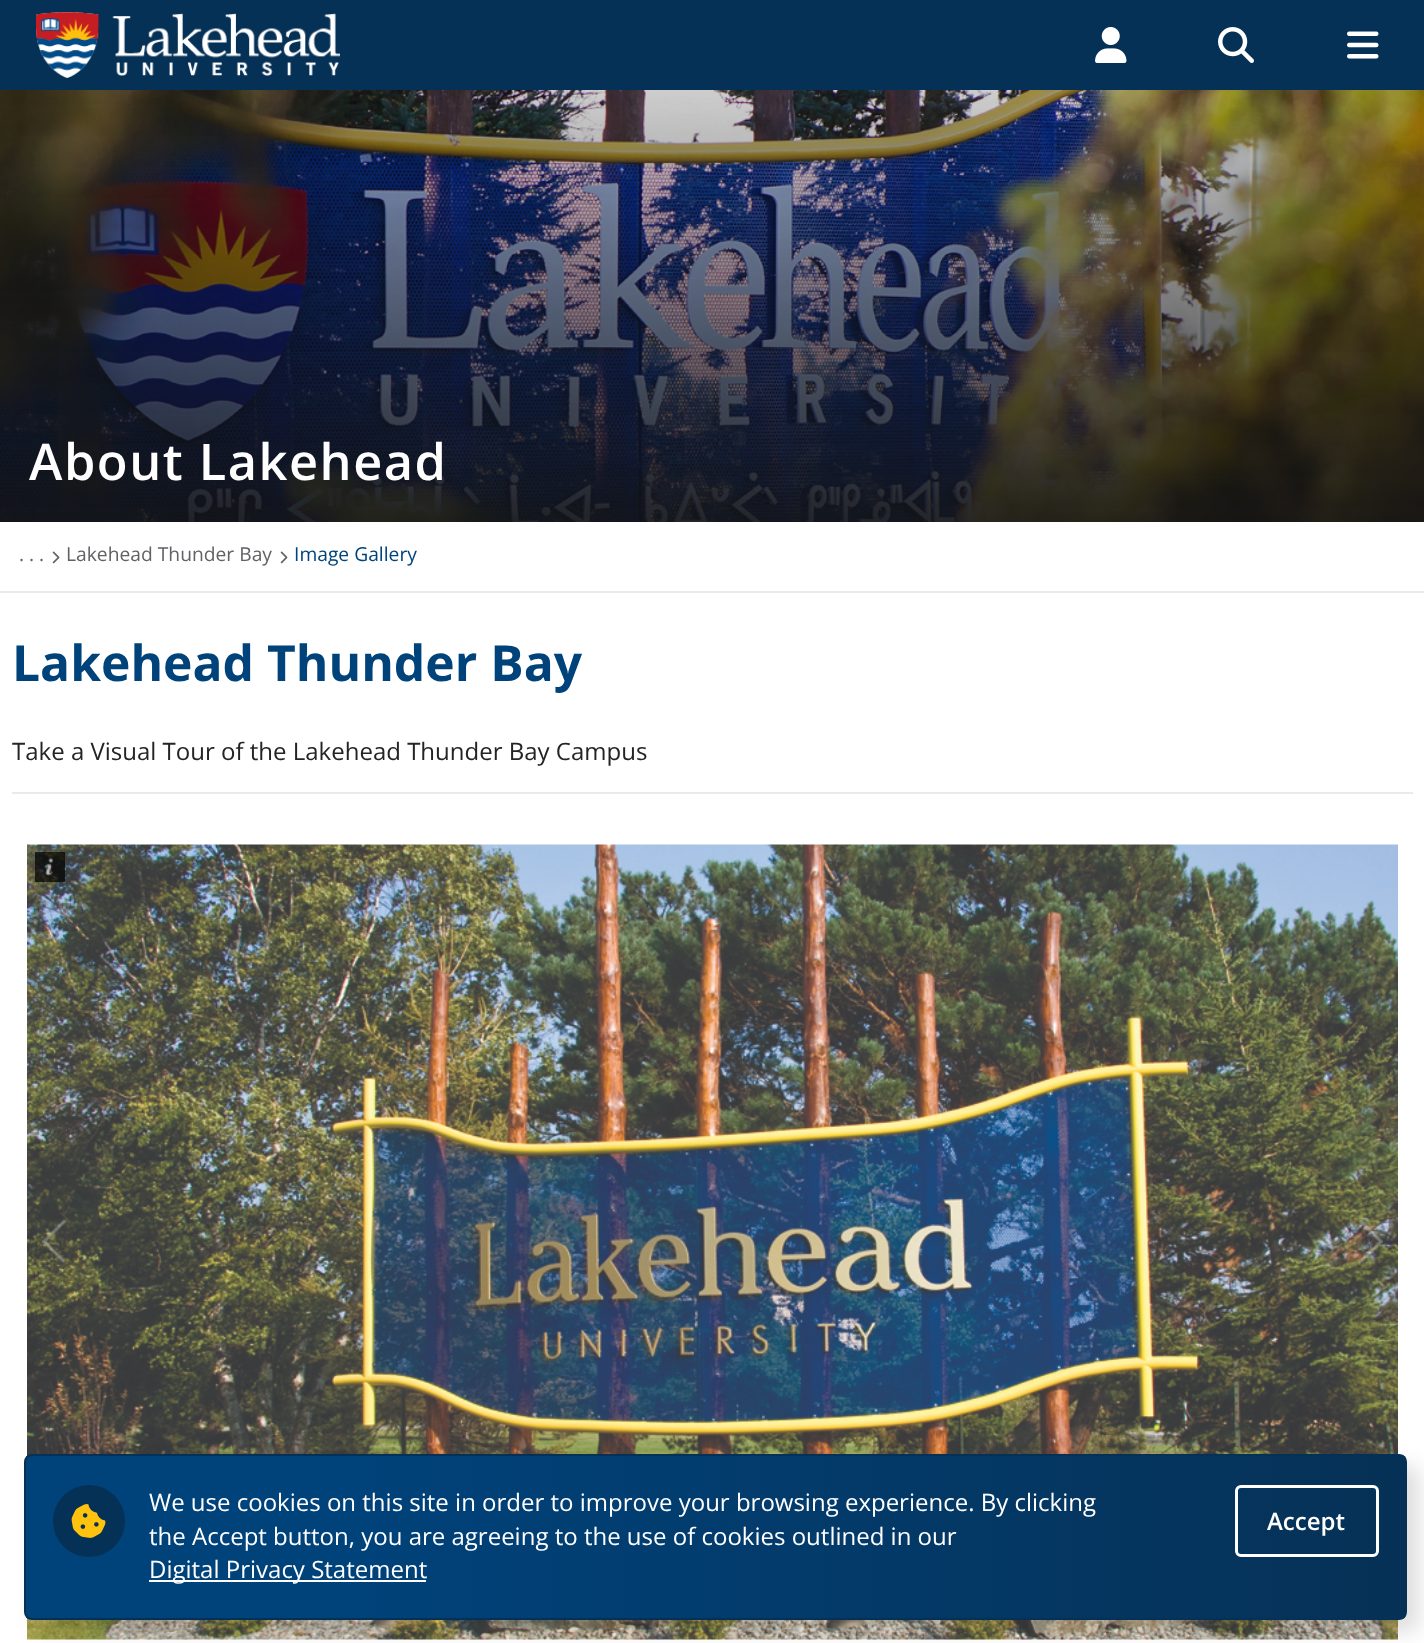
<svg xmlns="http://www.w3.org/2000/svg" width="1424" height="1643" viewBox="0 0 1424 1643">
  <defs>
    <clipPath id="clip1"><rect x="24" y="1454" width="1383" height="166" rx="8"/></clipPath>
    <linearGradient id="g1" gradientUnits="userSpaceOnUse" x1="25" y1="1538" x2="1406" y2="1535"><stop offset="0.24" stop-color="rgb(0,66,122)"/><stop offset="1" stop-color="rgb(6,49,86)"/></linearGradient>
  </defs>
  <rect width="100%" height="100%" fill="rgb(255,255,255)"/>
  <rect x="0" y="0" width="1424" height="90" fill="rgb(6,49,86)"/>
  <image x="36" y="12" width="304" height="66" href="pic1.png"/>
  <image x="1095" y="27" width="32" height="36" href="pic2.png"/>
  <image x="1218" y="27" width="36" height="36" href="pic3.png"/>
  <image x="1347" y="31" width="32" height="28" href="pic4.png"/>
  <image x="0" y="90" width="1424" height="432" href="pic5.png"/>
  <text x="29" y="480" font-family="Open Sans" font-size="50.5" font-weight="600" letter-spacing="1.5" fill="rgb(255,255,255)">About Lakehead</text>
  <rect x="0" y="591" width="1424" height="2" fill="rgb(234,234,234)"/>
  <text x="19" y="561" font-family="Open Sans" font-size="19.25" fill="rgb(97,98,101)">. . .</text>
  <image x="52" y="551" width="8" height="13" href="pic6.png"/>
  <text x="66" y="561" font-family="Open Sans" font-size="19.25" fill="rgb(97,98,101)">Lakehead Thunder Bay</text>
  <image x="280" y="551" width="8" height="13" href="pic6.png"/>
  <text x="294" y="561" font-family="Open Sans" font-size="19.25" fill="rgb(0,66,122)">Image Gallery</text>
  <text x="12" y="681" font-family="Open Sans" font-size="49.75" font-weight="bold" fill="rgb(0,66,122)">Lakehead Thunder Bay</text>
  <text x="12" y="760" font-family="Open Sans" font-size="24" fill="rgb(36,36,36)">Take a Visual Tour of the Lakehead Thunder Bay Campus</text>
  <rect x="12" y="792" width="1401" height="2" fill="rgb(234,234,234)"/>
  <image x="27" y="844" width="1371" height="796" href="pic7.png"/>
  <image x="42" y="1219" width="25" height="45" href="pic8.png"/>
  <image x="1358" y="1219" width="25" height="45" href="pic9.png"/>
  <rect x="35" y="852" width="30" height="30" fill="rgba(0,0,0,0.7)"/>
  <image x="44" y="857" width="9" height="20" href="pic10.png"/>
  <rect x="36" y="1466" width="1383" height="166" rx="8" fill="rgba(0,0,0,0.13)" filter="blur(10px)"/>
  <g clip-path="url(#clip1)">
    <rect x="26" y="1455" width="1380" height="164" fill="url(#g1)"/>
  </g>
  <rect x="25" y="1455" width="1381" height="164" rx="7" fill="none" stroke="rgb(6,49,86)" stroke-width="2"/>
  <circle cx="89" cy="1521" r="36" fill="rgb(6,49,86)"/>
  <image x="71" y="1504" width="35" height="34" href="pic11.png"/>
  <g font-family="Open Sans" font-size="24" fill="rgb(255,255,255)">
    <text>
      <tspan x="149" y="1511">We use cookies on this site in order to improve your browsing experience. By clicking</tspan>
      <tspan x="149" y="1545">the Accept button, you are agreeing to the use of cookies outlined in our</tspan>
    </text>
  </g>
  <rect x="149" y="1580" width="277" height="2" fill="rgb(255,255,255)"/>
  <text x="149" y="1578" font-family="Open Sans" font-size="24" fill="rgb(255,255,255)">Digital Privacy Statement</text>
  <rect x="1236.5" y="1486.5" width="141" height="69" rx="4.5" fill="none" stroke="rgb(255,255,255)" stroke-width="3"/>
  <text x="1267" y="1530" font-family="Open Sans" font-size="24" font-weight="600" fill="rgb(255,255,255)">Accept</text>
</svg>
